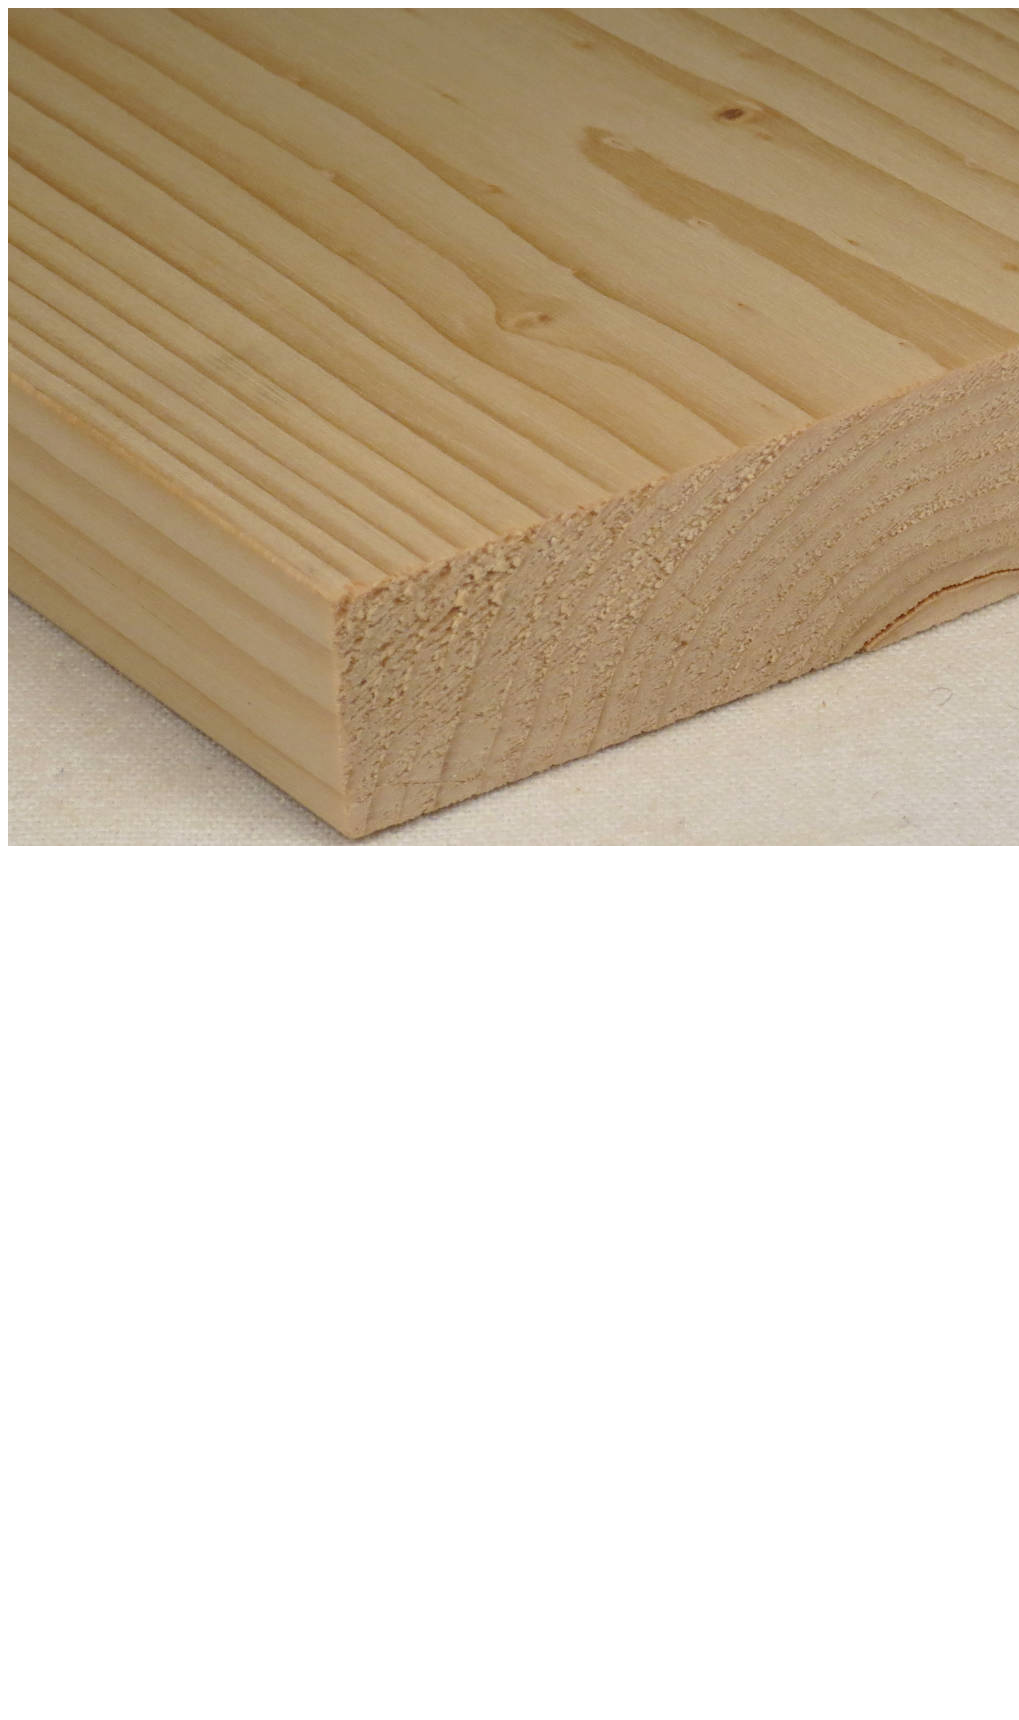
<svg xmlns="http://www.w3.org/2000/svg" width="1019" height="1720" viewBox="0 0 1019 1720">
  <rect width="100%" height="100%" fill="rgb(255,255,255)"/>
  <image x="8" y="8" width="1011" height="838" href="pic1.png"/>
</svg>
